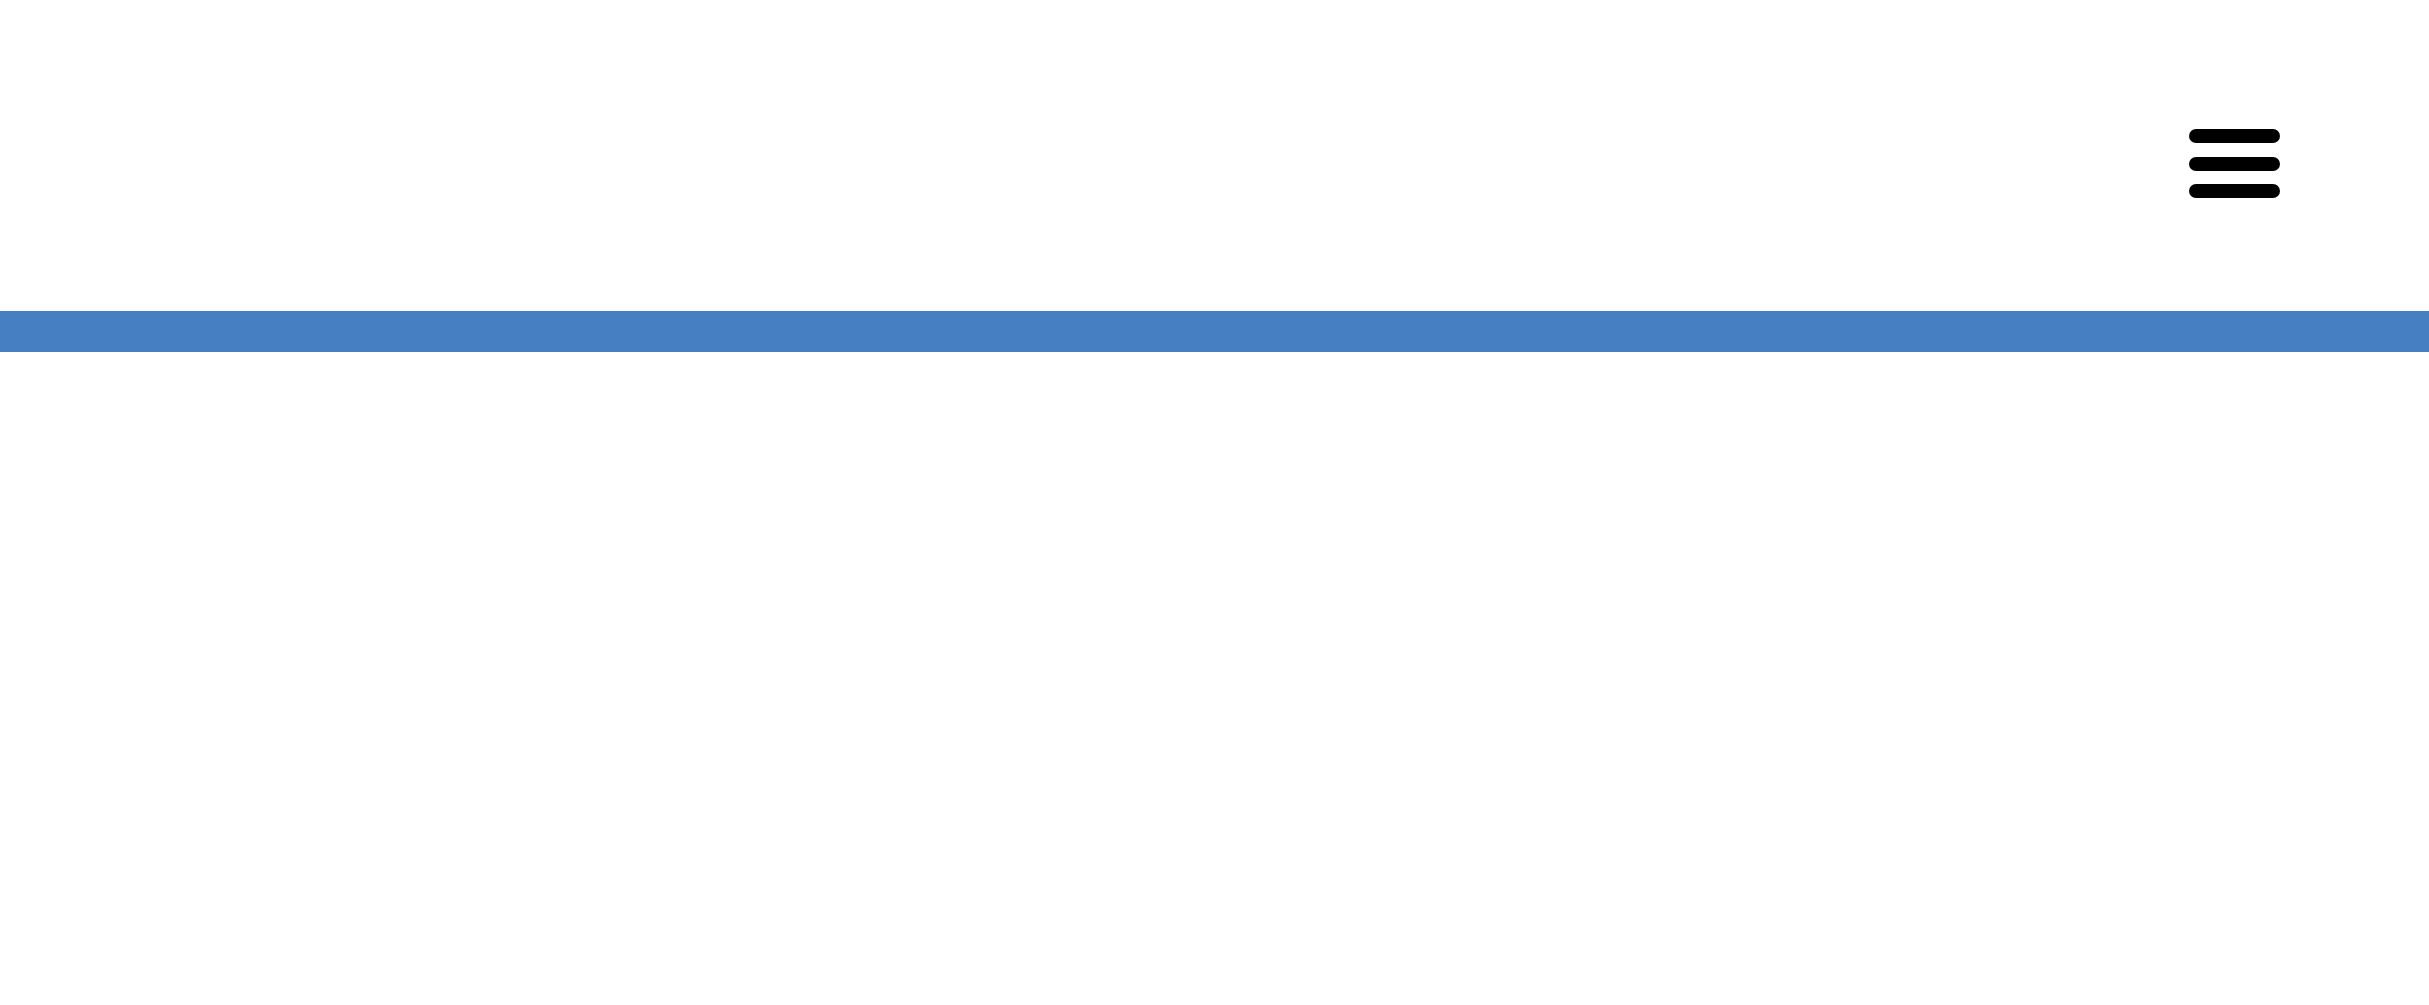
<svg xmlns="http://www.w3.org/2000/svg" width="2429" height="1005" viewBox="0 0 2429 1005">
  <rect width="100%" height="100%" fill="rgb(255,255,255)"/>
  <rect x="2189" y="157" width="91" height="14" rx="7" fill="rgb(0,0,0)"/>
  <rect x="2189" y="129" width="91" height="14" rx="7" fill="rgb(0,0,0)"/>
  <rect x="2189" y="184" width="91" height="14" rx="7" fill="rgb(0,0,0)"/>
  <rect x="0" y="311" width="2429" height="41" fill="rgb(70,128,195)"/>
</svg>
